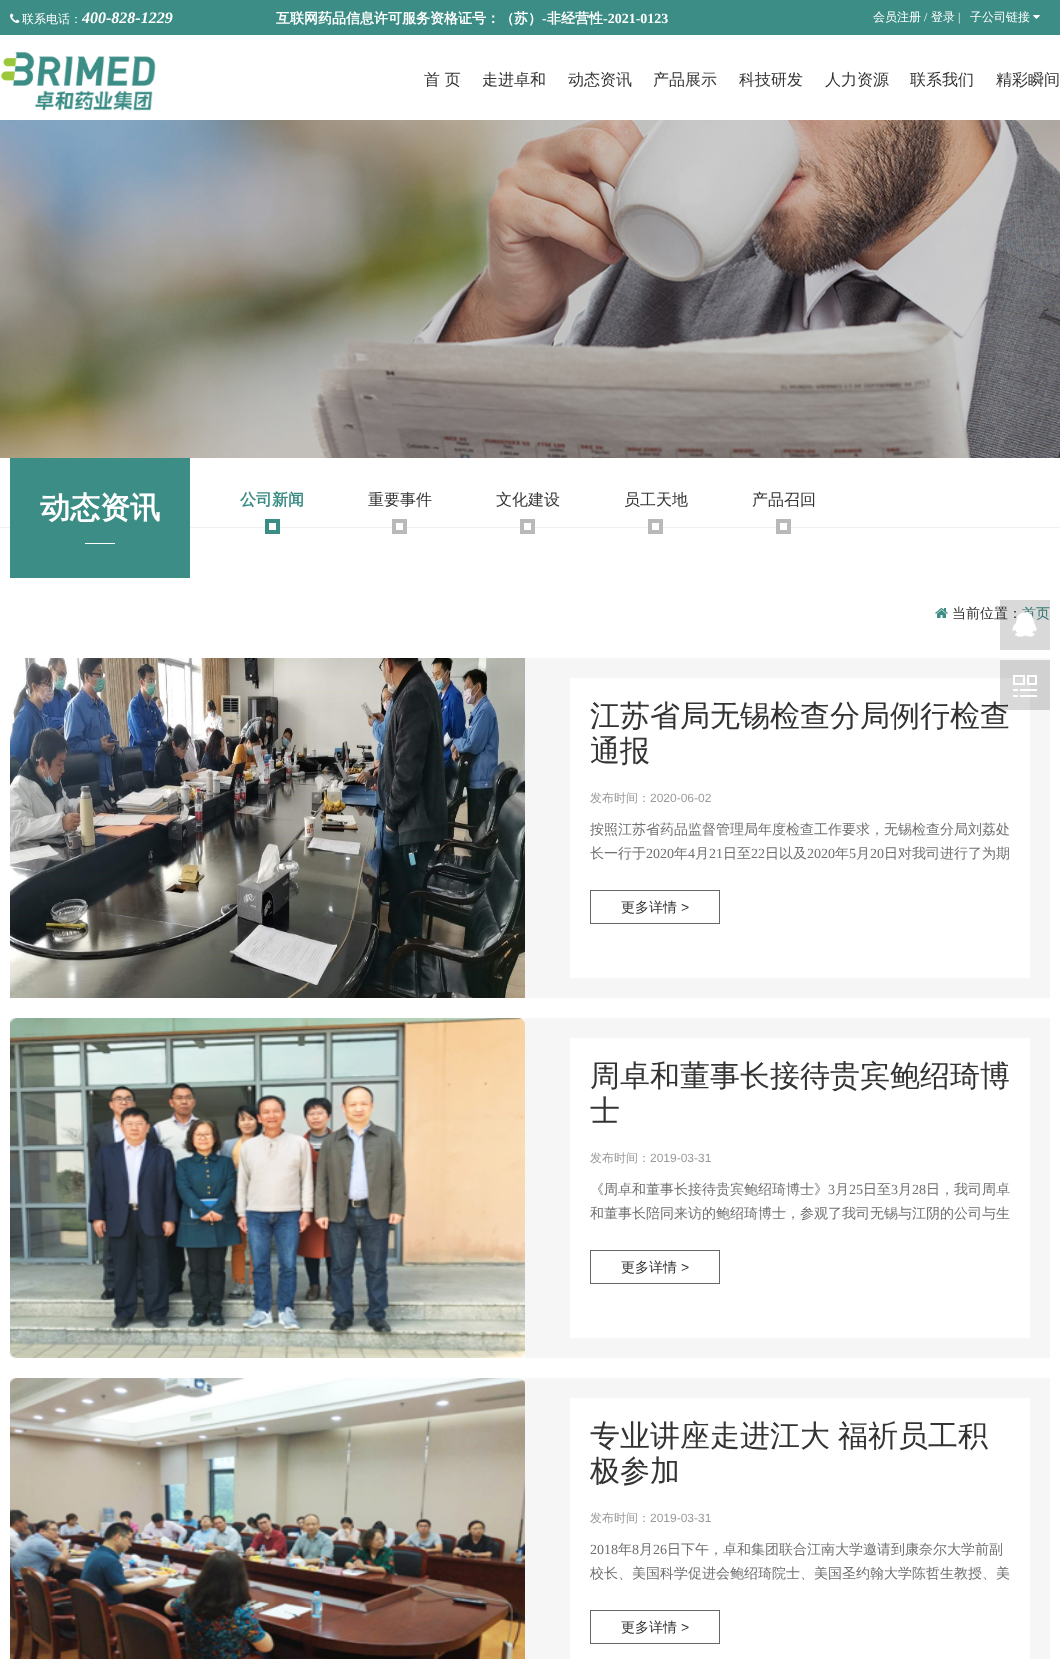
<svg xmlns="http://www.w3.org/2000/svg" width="1060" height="1659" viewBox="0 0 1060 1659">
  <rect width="100%" height="100%" fill="rgb(255,255,255)"/>
  <rect x="0" y="0" width="1060" height="35" fill="rgb(59,141,133)"/>
  <image x="10" y="13" width="10" height="10" href="pic1.png"/>
  <text x="22" y="23" font-family="WenQuanYi Zen Hei" font-size="12" font-weight="500" fill="rgb(255,255,255)">联系电话：</text>
  <text x="82" y="23" font-family="Liberation Serif" font-size="16" font-weight="bold" font-style="italic" fill="rgb(255,255,255)">400-828-1229</text>
  <text x="276" y="23" font-family="WenQuanYi Zen Hei" font-size="14" font-weight="bold" fill="rgb(255,255,255)">互联网药品信息许可服务资格证号：（苏）</text>
  <text x="542" y="23" font-family="Liberation Serif" font-size="14" font-weight="bold" fill="rgb(255,255,255)">-</text>
  <text x="547" y="23" font-family="WenQuanYi Zen Hei" font-size="14" font-weight="bold" fill="rgb(255,255,255)">非经营性</text>
  <text x="603" y="23" font-family="Liberation Serif" font-size="14" font-weight="bold" fill="rgb(255,255,255)">-2021-0123</text>
  <text x="873" y="21" font-family="WenQuanYi Zen Hei" font-size="12" font-weight="500" fill="rgb(255,255,255)">会员注册</text>
  <text x="924" y="21" font-family="Liberation Serif" font-size="12" fill="rgb(255,255,255)">/</text>
  <text x="931" y="21" font-family="WenQuanYi Zen Hei" font-size="12" font-weight="500" fill="rgb(255,255,255)">登录</text>
  <text x="958" y="21" font-family="Liberation Serif" font-size="12" fill="rgb(255,255,255)">|</text>
  <text x="970" y="21" font-family="WenQuanYi Zen Hei" font-size="12" font-weight="500" fill="rgb(255,255,255)">子公司链接</text>
  <image x="1033" y="15" width="7" height="4" href="pic2.png"/>
  <image x="0" y="51" width="156" height="60" href="pic3.png"/>
  <g font-family="WenQuanYi Zen Hei" font-size="16" font-weight="500" fill="rgb(51,51,51)">
    <text x="424" y="85">首 页</text>
    <text x="482" y="85">走进卓和</text>
    <text x="568" y="85">动态资讯</text>
    <text x="653" y="85">产品展示</text>
    <text x="739" y="85">科技研发</text>
    <text x="825" y="85">人力资源</text>
    <text x="910" y="85">联系我们</text>
    <text x="996" y="85">精彩瞬间</text>
  </g>
  <image x="0" y="120" width="1060" height="338" href="pic4.png"/>
  <rect x="0" y="527" width="1060" height="1" fill="rgb(240,240,240)"/>
  <rect x="10" y="458" width="180" height="120" fill="rgb(59,141,133)"/>
  <rect x="85" y="543" width="30" height="1" fill="rgb(255,255,255)"/>
  <text x="40" y="518" font-family="WenQuanYi Zen Hei" font-size="30" font-weight="bold" fill="rgb(255,255,255)">动态资讯</text>
  <image x="265" y="519" width="15" height="15" href="pic5.png"/>
  <text x="240" y="505" font-family="WenQuanYi Zen Hei" font-size="16" font-weight="bold" fill="rgb(59,141,133)">公司新闻</text>
  <image x="392" y="519" width="15" height="15" href="pic6.png"/>
  <text x="368" y="505" font-family="WenQuanYi Zen Hei" font-size="16" font-weight="500" fill="rgb(51,51,51)">重要事件</text>
  <image x="520" y="519" width="15" height="15" href="pic6.png"/>
  <text x="496" y="505" font-family="WenQuanYi Zen Hei" font-size="16" font-weight="500" fill="rgb(51,51,51)">文化建设</text>
  <image x="648" y="519" width="15" height="15" href="pic6.png"/>
  <text x="624" y="505" font-family="WenQuanYi Zen Hei" font-size="16" font-weight="500" fill="rgb(51,51,51)">员工天地</text>
  <image x="776" y="519" width="15" height="15" href="pic6.png"/>
  <text x="752" y="505" font-family="WenQuanYi Zen Hei" font-size="16" font-weight="500" fill="rgb(51,51,51)">产品召回</text>
  <text x="952" y="618" font-family="WenQuanYi Zen Hei" font-size="14" font-weight="500" fill="rgb(51,51,51)">当前位置：</text>
  <text x="1022" y="618" font-family="WenQuanYi Zen Hei" font-size="14" font-weight="500" fill="rgb(59,141,133)">首页</text>
  <image x="1000" y="600" width="50" height="50" href="pic7.png"/>
  <image x="935" y="608" width="13" height="10" href="pic8.png"/>
  <rect x="525" y="658" width="525" height="340" fill="rgb(246,246,246)"/>
  <image x="10" y="658" width="515" height="340" href="pic9.png"/>
  <rect x="570" y="678" width="460" height="300" fill="rgb(255,255,255)"/>
  <g font-family="WenQuanYi Zen Hei" font-size="30" font-weight="500" fill="rgb(51,51,51)">
    <text>
      <tspan x="590" y="726">江苏省局无锡检查分局例行检查</tspan>
      <tspan x="590" y="761">通报</tspan>
    </text>
  </g>
  <text x="590" y="802" font-family="WenQuanYi Zen Hei" font-size="12" font-weight="500" fill="rgb(153,153,153)">发布时间：</text>
  <text x="650" y="802" font-family="Liberation Sans" font-size="12" fill="rgb(153,153,153)">2020-06-02</text>
  <g font-family="WenQuanYi Zen Hei" font-size="14" font-weight="500" fill="rgb(111,111,111)">
    <text>
      <tspan x="590" y="834">按照江苏省药品监督管理局年度检查工作要求，无锡检查分局刘荔处</tspan>
      <tspan x="590" y="858">长一行于</tspan>
    </text>
  </g>
  <text x="646" y="858" font-family="Liberation Serif" font-size="14" fill="rgb(111,111,111)">2020</text>
  <text x="674" y="858" font-family="WenQuanYi Zen Hei" font-size="14" font-weight="500" fill="rgb(111,111,111)">年</text>
  <text x="688" y="858" font-family="Liberation Serif" font-size="14" fill="rgb(111,111,111)">4</text>
  <text x="695" y="858" font-family="WenQuanYi Zen Hei" font-size="14" font-weight="500" fill="rgb(111,111,111)">月</text>
  <text x="709" y="858" font-family="Liberation Serif" font-size="14" fill="rgb(111,111,111)">21</text>
  <text x="723" y="858" font-family="WenQuanYi Zen Hei" font-size="14" font-weight="500" fill="rgb(111,111,111)">日至</text>
  <text x="751" y="858" font-family="Liberation Serif" font-size="14" fill="rgb(111,111,111)">22</text>
  <text x="765" y="858" font-family="WenQuanYi Zen Hei" font-size="14" font-weight="500" fill="rgb(111,111,111)">日以及</text>
  <text x="807" y="858" font-family="Liberation Serif" font-size="14" fill="rgb(111,111,111)">2020</text>
  <text x="835" y="858" font-family="WenQuanYi Zen Hei" font-size="14" font-weight="500" fill="rgb(111,111,111)">年</text>
  <text x="849" y="858" font-family="Liberation Serif" font-size="14" fill="rgb(111,111,111)">5</text>
  <text x="856" y="858" font-family="WenQuanYi Zen Hei" font-size="14" font-weight="500" fill="rgb(111,111,111)">月</text>
  <text x="870" y="858" font-family="Liberation Serif" font-size="14" fill="rgb(111,111,111)">20</text>
  <text x="884" y="858" font-family="WenQuanYi Zen Hei" font-size="14" font-weight="500" fill="rgb(111,111,111)">日对我司进行了为期</text>
  <rect x="590.5" y="890.5" width="129" height="33" fill="none" stroke="rgb(102,102,102)"/>
  <text x="621" y="912" font-family="WenQuanYi Zen Hei" font-size="14" font-weight="500" fill="rgb(51,51,51)">更多详情</text>
  <text x="681" y="912" font-family="Liberation Sans" font-size="14" fill="rgb(51,51,51)">&gt;</text>
  <rect x="525" y="1018" width="525" height="340" fill="rgb(246,246,246)"/>
  <image x="10" y="1018" width="515" height="340" href="pic10.png"/>
  <rect x="570" y="1038" width="460" height="300" fill="rgb(255,255,255)"/>
  <g font-family="WenQuanYi Zen Hei" font-size="30" font-weight="500" fill="rgb(51,51,51)">
    <text>
      <tspan x="590" y="1086">周卓和董事长接待贵宾鲍绍琦博</tspan>
      <tspan x="590" y="1121">士</tspan>
    </text>
  </g>
  <text x="590" y="1162" font-family="WenQuanYi Zen Hei" font-size="12" font-weight="500" fill="rgb(153,153,153)">发布时间：</text>
  <text x="650" y="1162" font-family="Liberation Sans" font-size="12" fill="rgb(153,153,153)">2019-03-31</text>
  <text x="590" y="1194" font-family="WenQuanYi Zen Hei" font-size="14" font-weight="500" fill="rgb(111,111,111)">《周卓和董事长接待贵宾鲍绍琦博士》</text>
  <text x="828" y="1194" font-family="Liberation Serif" font-size="14" fill="rgb(111,111,111)">3</text>
  <text x="835" y="1194" font-family="WenQuanYi Zen Hei" font-size="14" font-weight="500" fill="rgb(111,111,111)">月</text>
  <text x="849" y="1194" font-family="Liberation Serif" font-size="14" fill="rgb(111,111,111)">25</text>
  <text x="863" y="1194" font-family="WenQuanYi Zen Hei" font-size="14" font-weight="500" fill="rgb(111,111,111)">日至</text>
  <text x="891" y="1194" font-family="Liberation Serif" font-size="14" fill="rgb(111,111,111)">3</text>
  <text x="898" y="1194" font-family="WenQuanYi Zen Hei" font-size="14" font-weight="500" fill="rgb(111,111,111)">月</text>
  <text x="912" y="1194" font-family="Liberation Serif" font-size="14" fill="rgb(111,111,111)">28</text>
  <g font-family="WenQuanYi Zen Hei" font-size="14" font-weight="500" fill="rgb(111,111,111)">
    <text x="926" y="1194">日，我司周卓</text>
    <text x="590" y="1218">和董事长陪同来访的鲍绍琦博士，参观了我司无锡与江阴的公司与生</text>
  </g>
  <rect x="590.5" y="1250.5" width="129" height="33" fill="none" stroke="rgb(102,102,102)"/>
  <text x="621" y="1272" font-family="WenQuanYi Zen Hei" font-size="14" font-weight="500" fill="rgb(51,51,51)">更多详情</text>
  <text x="681" y="1272" font-family="Liberation Sans" font-size="14" fill="rgb(51,51,51)">&gt;</text>
  <rect x="525" y="1378" width="525" height="281" fill="rgb(246,246,246)"/>
  <image x="10" y="1378" width="515" height="281" href="pic11.png"/>
  <rect x="570" y="1398" width="460" height="261" fill="rgb(255,255,255)"/>
  <g font-family="WenQuanYi Zen Hei" font-size="30" font-weight="500" fill="rgb(51,51,51)">
    <text>
      <tspan x="590" y="1446" word-spacing="-1">专业讲座走进江大 福祈员工积</tspan>
      <tspan x="590" y="1481">极参加</tspan>
    </text>
  </g>
  <text x="590" y="1522" font-family="WenQuanYi Zen Hei" font-size="12" font-weight="500" fill="rgb(153,153,153)">发布时间：</text>
  <text x="650" y="1522" font-family="Liberation Sans" font-size="12" fill="rgb(153,153,153)">2019-03-31</text>
  <text x="590" y="1554" font-family="Liberation Serif" font-size="14" fill="rgb(111,111,111)">2018</text>
  <text x="618" y="1554" font-family="WenQuanYi Zen Hei" font-size="14" font-weight="500" fill="rgb(111,111,111)">年</text>
  <text x="632" y="1554" font-family="Liberation Serif" font-size="14" fill="rgb(111,111,111)">8</text>
  <text x="639" y="1554" font-family="WenQuanYi Zen Hei" font-size="14" font-weight="500" fill="rgb(111,111,111)">月</text>
  <text x="653" y="1554" font-family="Liberation Serif" font-size="14" fill="rgb(111,111,111)">26</text>
  <g font-family="WenQuanYi Zen Hei" font-size="14" font-weight="500" fill="rgb(111,111,111)">
    <text x="667" y="1554">日下午，卓和集团联合江南大学邀请到康奈尔大学前副</text>
    <text x="590" y="1578">校长、美国科学促进会鲍绍琦院士、美国圣约翰大学陈哲生教授、美</text>
  </g>
  <rect x="590.5" y="1610.5" width="129" height="33" fill="none" stroke="rgb(102,102,102)"/>
  <text x="621" y="1632" font-family="WenQuanYi Zen Hei" font-size="14" font-weight="500" fill="rgb(51,51,51)">更多详情</text>
  <text x="681" y="1632" font-family="Liberation Sans" font-size="14" fill="rgb(51,51,51)">&gt;</text>
  <image x="1000" y="660" width="50" height="50" href="pic12.png"/>
</svg>
